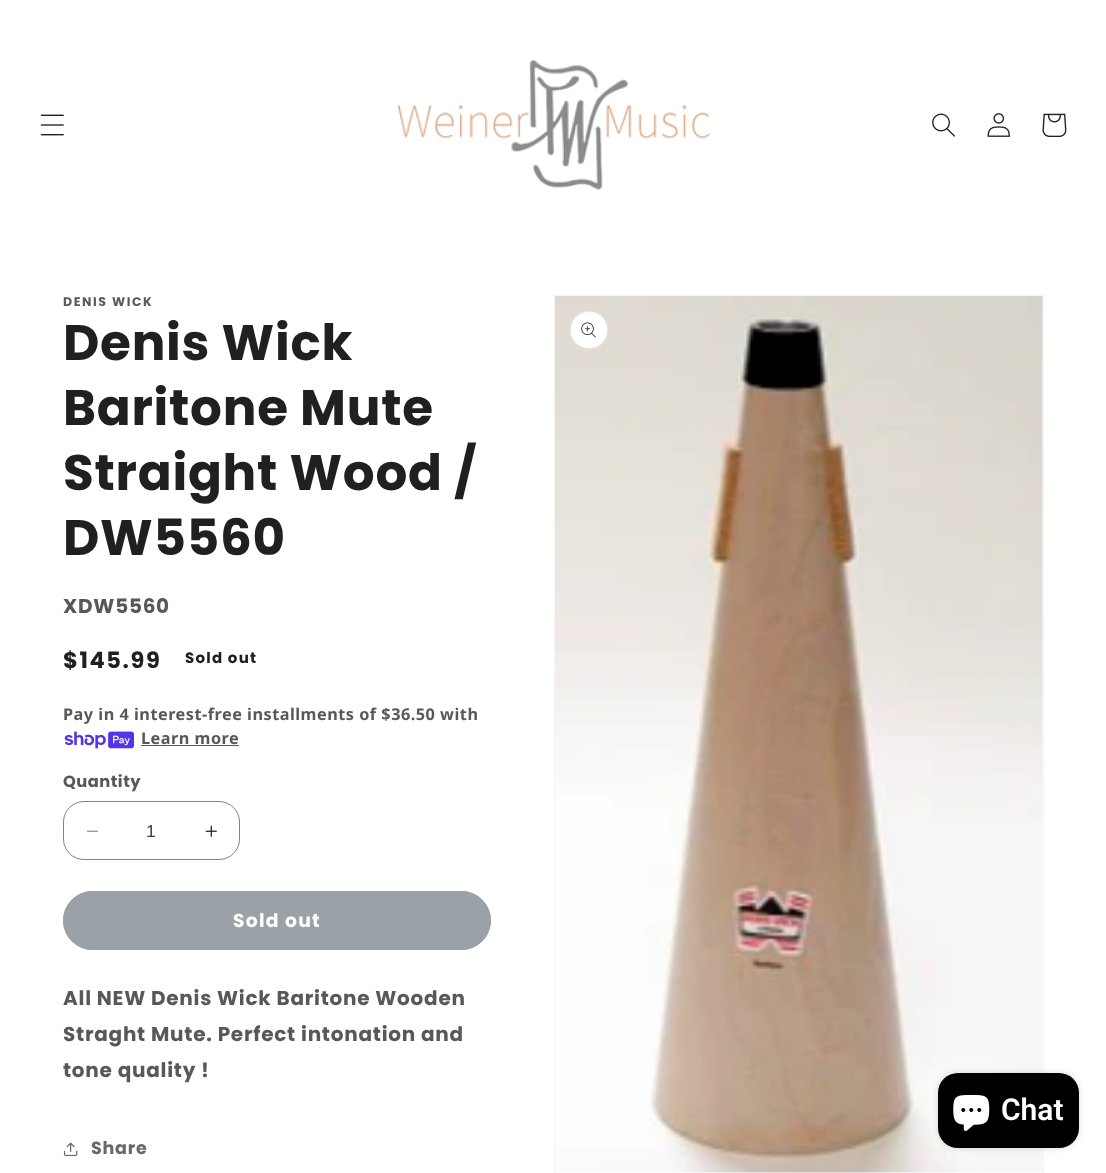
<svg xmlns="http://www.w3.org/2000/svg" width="1106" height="1173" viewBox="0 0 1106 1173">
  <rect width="100%" height="100%" fill="rgb(255,255,255)"/>
  <image x="40" y="114" width="24" height="22" href="pic1.png"/>
  <image x="397" y="60" width="314" height="131" href="pic2.png"/>
  <image x="932" y="113" width="23" height="24" href="pic3.png"/>
  <image x="987" y="113" width="23" height="24" href="pic4.png"/>
  <image x="1042" y="113" width="25" height="24" href="pic5.png"/>
  <text x="63" y="306" font-family="Poppins" font-size="12.5" font-weight="bold" letter-spacing="1.6" fill="rgb(88,88,88)">DENIS WICK</text>
  <g font-family="Poppins" font-size="50" font-weight="bold" letter-spacing="0.75" fill="rgb(32,32,32)">
    <text>
      <tspan x="63" y="360">Denis Wick</tspan>
      <tspan x="63" y="425">Baritone Mute</tspan>
      <tspan x="63" y="490">Straight Wood /</tspan>
      <tspan x="63" y="555">DW5560</tspan>
    </text>
  </g>
  <text x="63" y="613" font-family="Poppins" font-size="20" font-weight="bold" letter-spacing="0.75" fill="rgb(88,88,88)">XDW5560</text>
  <text x="63" y="668" font-family="Poppins" font-size="22.5" font-weight="bold" letter-spacing="1.6" fill="rgb(32,32,32)">$145.99</text>
  <text x="185" y="663" font-family="Poppins" font-size="15" font-weight="bold" letter-spacing="1.25" fill="rgb(32,32,32)">Sold out</text>
  <text x="63" y="720" font-family="Noto Sans" font-size="16.25" font-weight="bold" letter-spacing="0.5" fill="rgb(88,88,88)">Pay in 4 interest-free installments of $36.50 with</text>
  <image x="64" y="731" width="70" height="18" href="pic6.png"/>
  <text x="141" y="744" font-family="Noto Sans" font-size="16.25" font-weight="bold" letter-spacing="0.5" fill="rgb(88,88,88)">Learn more</text>
  <rect x="141" y="745" width="98" height="1" fill="rgb(88,88,88)"/>
  <text x="63" y="787" font-family="Poppins" font-size="16.25" font-weight="bold" letter-spacing="0.5" fill="rgb(88,88,88)">Quantity</text>
  <image x="87" y="830" width="11" height="2" href="pic7.png"/>
  <image x="205" y="825" width="12" height="12" href="pic8.png"/>
  <rect x="63.5" y="801.5" width="176" height="58" rx="20.5" fill="none" stroke="rgb(132,132,132)"/>
  <text x="146" y="837" font-family="Liberation Sans" font-size="17.5" fill="rgb(65,65,65)">1</text>
  <rect x="63" y="891" width="428" height="59" rx="29.5" fill="rgb(155,162,167)"/>
  <rect x="63.5" y="891.5" width="427" height="58" rx="29" fill="none" stroke="rgb(155,162,167)"/>
  <text x="233" y="927" font-family="Poppins" font-size="18.75" font-weight="bold" letter-spacing="1.25" fill="rgb(255,255,255)">Sold out</text>
  <g font-family="Poppins" font-size="20" font-weight="bold" letter-spacing="0.75" fill="rgb(88,88,88)">
    <text>
      <tspan x="63" y="1005">All NEW Denis Wick Baritone Wooden</tspan>
      <tspan x="63" y="1041">Straght Mute. Perfect intonation and</tspan>
      <tspan x="63" y="1077">tone quality !</tspan>
    </text>
  </g>
  <image x="63" y="1142" width="15" height="14" href="pic9.png"/>
  <text x="91" y="1154" font-family="Poppins" font-size="17.5" font-weight="bold" letter-spacing="0.75" fill="rgb(105,105,105)">Share</text>
  <rect x="554.5" y="295.5" width="489" height="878" fill="none" stroke="rgb(244,244,244)"/>
  <image x="555" y="296" width="488" height="877" href="pic10.png"/>
  <circle cx="589" cy="330" r="19" fill="rgb(255,255,255)"/>
  <circle cx="589" cy="330" r="18.5" fill="none" stroke="rgba(32,32,32,0.1)"/>
  <image x="581" y="322" width="15" height="16" href="pic11.png"/>
  <rect x="938" y="1073" width="141" height="75" rx="20" fill="rgba(0,0,0,0.15)" filter="blur(3px)"/>
  <rect x="938" y="1073" width="141" height="75" rx="20" fill="rgb(0,0,0)"/>
  <image x="953" y="1095" width="37" height="36" href="pic12.png"/>
  <text x="1001" y="1120" font-family="Roboto" font-size="30" font-weight="600" fill="rgb(255,255,255)">Chat</text>
</svg>
